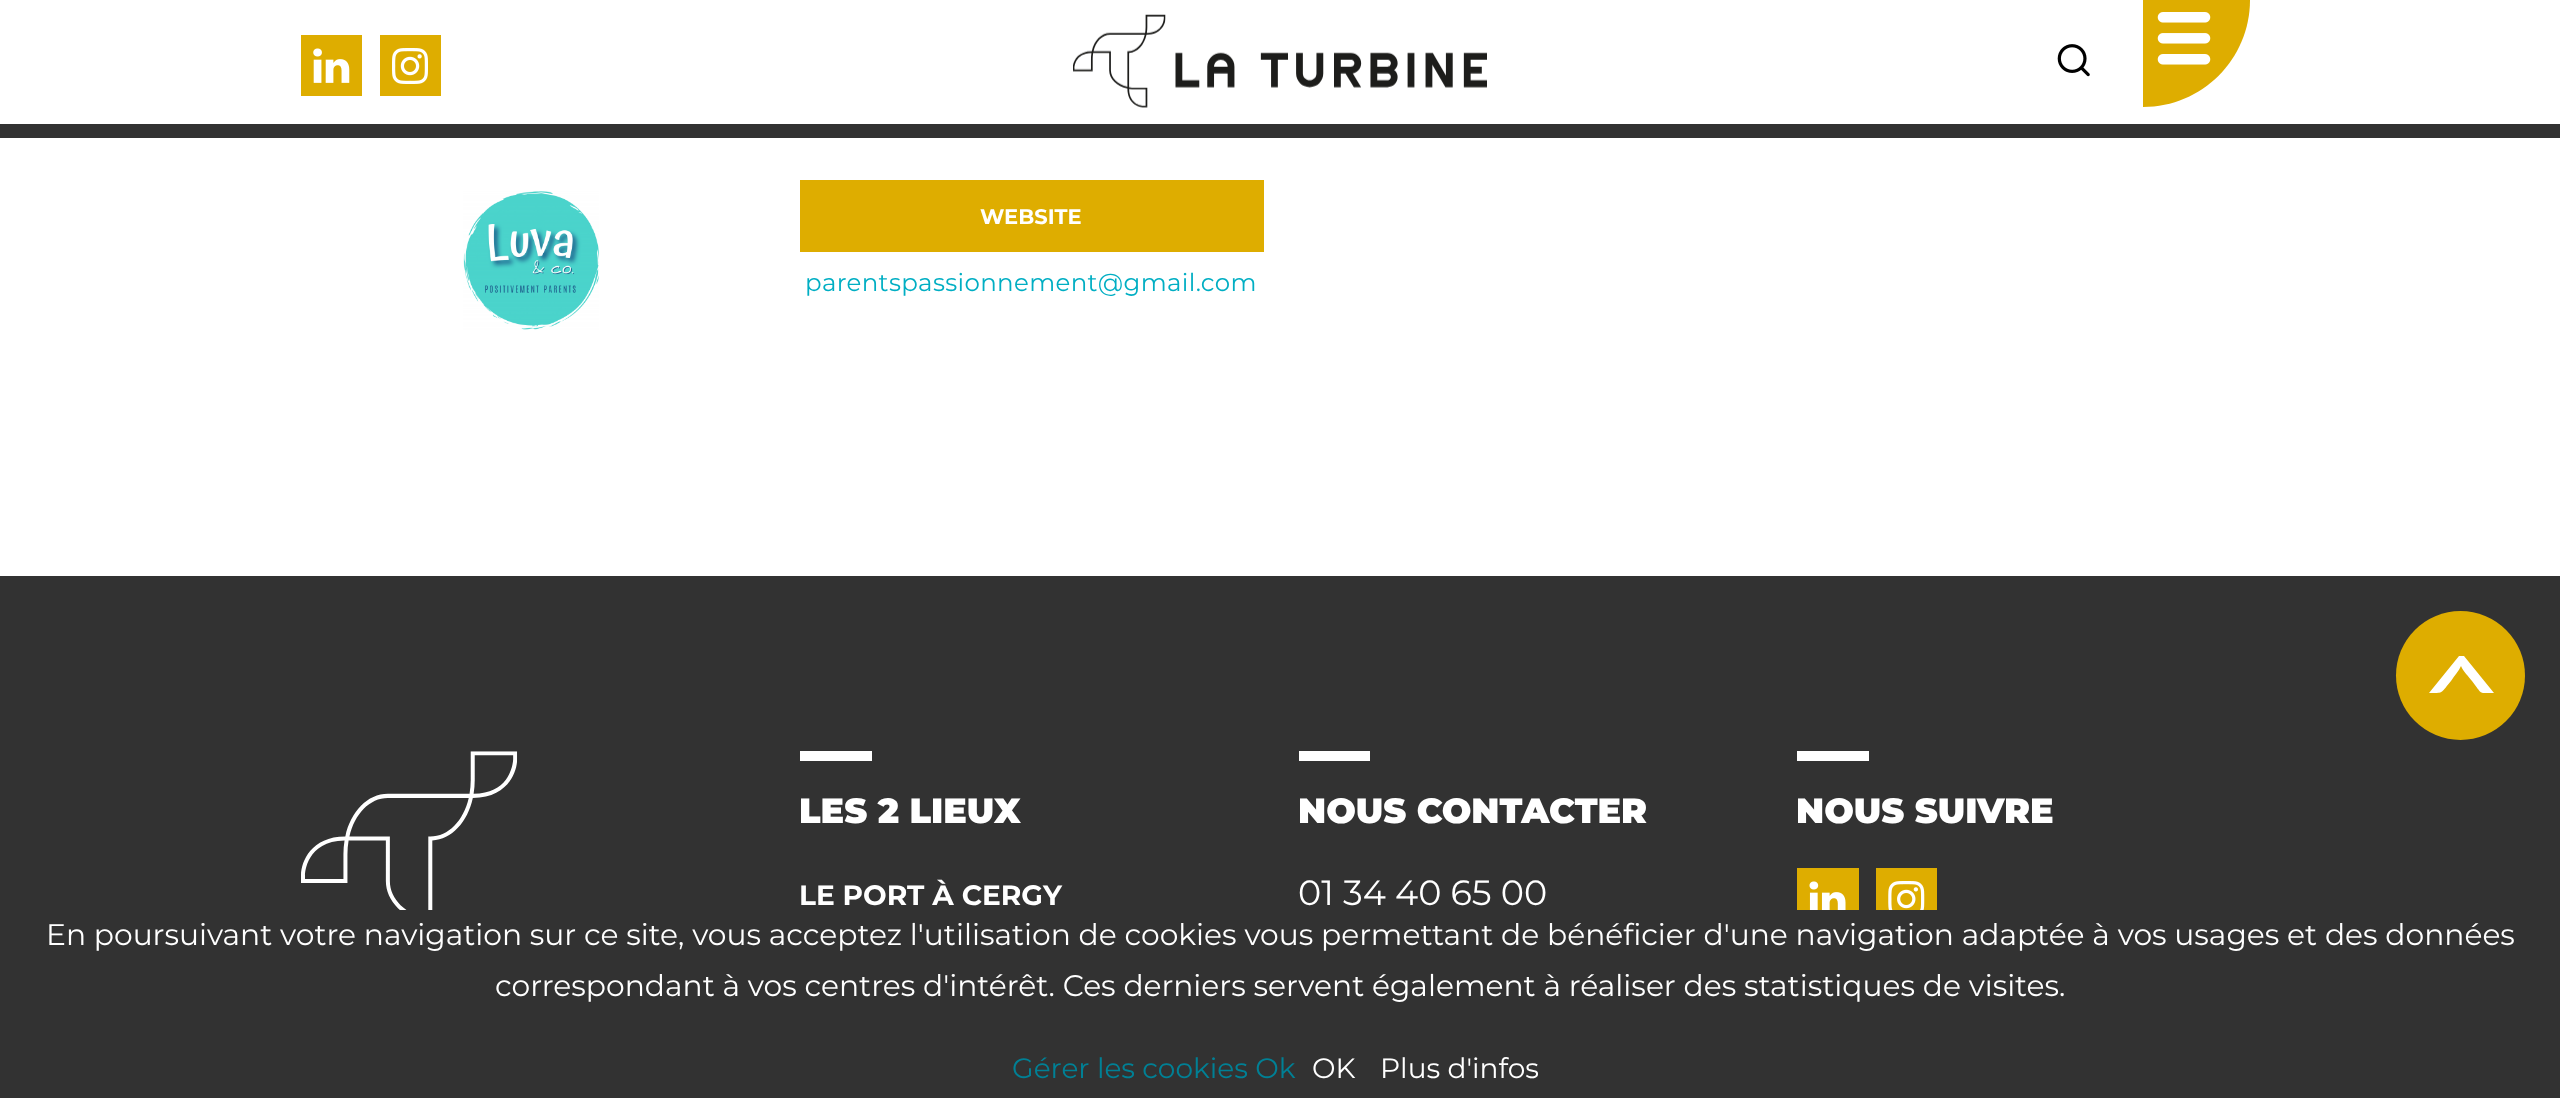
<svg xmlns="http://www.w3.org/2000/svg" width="2560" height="1098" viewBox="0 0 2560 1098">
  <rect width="100%" height="100%" fill="rgb(255,255,255)"/>
  <rect x="0" y="124" width="2560" height="14" fill="rgb(50,50,50)"/>
  <rect x="301" y="35" width="61" height="61" fill="rgb(222,173,0)"/>
  <image x="313" y="48" width="37" height="35" href="pic1.png"/>
  <rect x="380" y="35" width="61" height="61" fill="rgb(222,173,0)"/>
  <image x="392" y="48" width="36" height="36" href="pic2.png"/>
  <image x="1073" y="14" width="414" height="94" href="pic3.png"/>
  <image x="2057" y="44" width="33" height="33" href="pic4.png"/>
  <path d="M2143 0H2250C2250 59 2202 107 2143 107Z" fill="rgb(222,173,0)" fill-rule="evenodd"/>
  <image x="2157" y="12" width="54" height="53" href="pic5.png"/>
  <image x="463" y="191" width="136" height="139" href="pic6.png"/>
  <rect x="800" y="180" width="464" height="72" fill="rgb(222,173,0)"/>
  <text x="980" y="224" font-family="Montserrat" font-size="21" font-weight="bold" fill="rgb(255,255,255)">WEBSITE</text>
  <text x="805" y="291" font-family="Montserrat" font-size="24.5" letter-spacing="0.35" fill="rgb(0,174,195)">parentspassionnement@gmail.com</text>
  <rect x="0" y="576" width="2560" height="522" fill="rgb(50,50,50)"/>
  <circle cx="2460.5" cy="675.5" r="64.5" fill="rgb(222,173,0)"/>
  <path d="M2494 693C2478 693 2483 695 2472 681C2469 677 2463 671 2461 666C2459 671 2454 676 2451 681C2440 694 2444 693 2429 693L2459 656H2464Z" fill="rgb(255,255,255)" fill-rule="evenodd"/>
  <image x="301" y="751" width="217" height="159" href="pic7.png"/>
  <rect x="800" y="751" width="72" height="10" fill="rgb(255,255,255)"/>
  <text x="799" y="823" font-family="Montserrat" font-size="35" font-weight="900" fill="rgb(255,255,255)">LES 2 LIEUX</text>
  <text x="799" y="905" font-family="Montserrat" font-size="28" font-weight="bold" fill="rgb(255,255,255)">LE PORT À CERGY</text>
  <rect x="1299" y="751" width="71" height="10" fill="rgb(255,255,255)"/>
  <text x="1298" y="823" font-family="Montserrat" font-size="35" font-weight="900" fill="rgb(255,255,255)">NOUS CONTACTER</text>
  <text x="1298" y="905" font-family="Montserrat" font-size="35" fill="rgb(255,255,255)">01 34 40 65 00</text>
  <rect x="1797" y="751" width="72" height="10" fill="rgb(255,255,255)"/>
  <text x="1796" y="823" font-family="Montserrat" font-size="35" font-weight="900" fill="rgb(255,255,255)">NOUS SUIVRE</text>
  <rect x="1797" y="868" width="62" height="42" fill="rgb(222,173,0)"/>
  <image x="1809" y="881" width="37" height="29" href="pic8.png"/>
  <rect x="1876" y="868" width="61" height="42" fill="rgb(222,173,0)"/>
  <image x="1888" y="881" width="37" height="29" href="pic9.png"/>
  <g font-family="Montserrat" font-size="29.75" fill="rgb(255,255,255)">
    <text x="46" y="945">En poursuivant votre navigation sur ce site, vous acceptez l'utilisation de cookies vous permettant de bénéficier d'une navigation adaptée à vos usages et des données</text>
    <text x="495" y="996">correspondant à vos centres d'intérêt. Ces derniers servent également à réaliser des statistiques de visites.</text>
  </g>
  <text x="1012" y="1078" font-family="Montserrat" font-size="28" fill="rgb(0,128,149)">Gérer les cookies Ok</text>
  <g font-family="Montserrat" font-size="28" fill="rgb(255,255,255)">
    <text x="1312" y="1078">OK</text>
    <text x="1380" y="1078">Plus d'infos</text>
  </g>
</svg>
